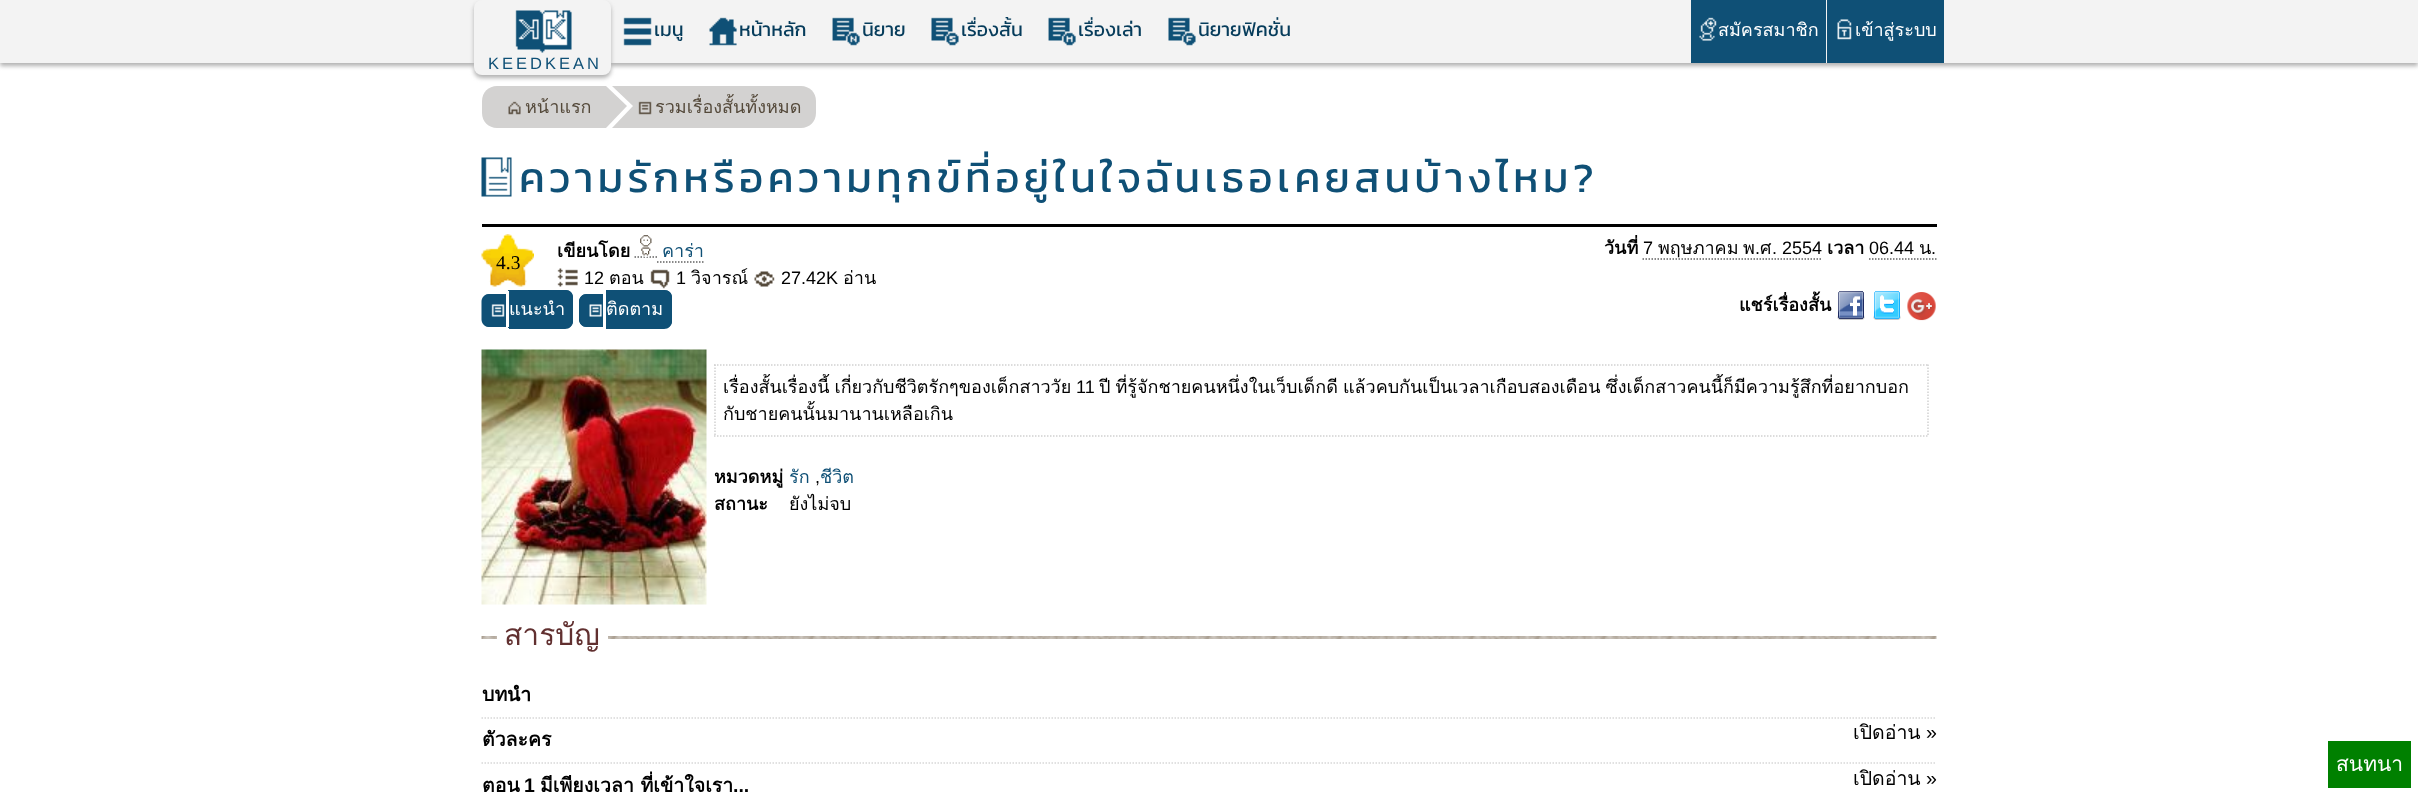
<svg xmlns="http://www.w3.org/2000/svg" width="2418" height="795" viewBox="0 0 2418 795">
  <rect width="100%" height="100%" fill="rgb(255,255,255)"/>
  <rect x="0" y="3" width="2418" height="63" fill="rgb(177,177,177)" filter="blur(2px)"/>
  <rect x="0" y="0" width="2418" height="63" fill="rgb(243,243,243)"/>
  <image x="623" y="17" width="29" height="29" href="pic1.png"/>
  <text x="654" y="36" font-family="Kanit" font-size="19.5" fill="rgb(6,60,91)">เมนู</text>
  <image x="709" y="17" width="28" height="29" href="pic2.png"/>
  <text x="739" y="36" font-family="Kanit" font-size="19.5" fill="rgb(6,60,91)">หน้าหลัก</text>
  <image x="832" y="17" width="28" height="29" href="pic3.png"/>
  <text x="862" y="36" font-family="Kanit" font-size="19.5" fill="rgb(6,60,91)">นิยาย</text>
  <image x="931" y="17" width="28" height="29" href="pic4.png"/>
  <text x="961" y="36" font-family="Kanit" font-size="19.5" fill="rgb(6,60,91)">เรื่องสั้น</text>
  <image x="1048" y="17" width="28" height="29" href="pic5.png"/>
  <text x="1078" y="36" font-family="Kanit" font-size="19.5" fill="rgb(6,60,91)">เรื่องเล่า</text>
  <image x="1168" y="17" width="28" height="29" href="pic6.png"/>
  <text x="1198" y="36" font-family="Kanit" font-size="19.5" fill="rgb(6,60,91)">นิยายฟิคชั่น</text>
  <rect x="1691" y="0" width="135" height="63" fill="rgb(15,80,118)"/>
  <image x="1699" y="17" width="18" height="24" href="pic7.png"/>
  <text x="1718" y="36" font-family="Loma" font-size="18" fill="rgb(255,255,255)">สมัครสมาชิก</text>
  <rect x="1827" y="0" width="117" height="63" fill="rgb(15,80,118)"/>
  <image x="1837" y="19" width="15" height="21" href="pic8.png"/>
  <text x="1855" y="36" font-family="Loma" font-size="18" fill="rgb(255,255,255)">เข้าสู่ระบบ</text>
  <rect x="474" y="3" width="137" height="75" rx="8" fill="rgb(177,177,177)" filter="blur(2px)"/>
  <rect x="474" y="0" width="137" height="75" rx="8" fill="rgb(243,243,243)"/>
  <image x="515" y="10" width="57" height="43" href="pic9.png"/>
  <text x="488" y="69" font-family="Liberation Sans" font-size="16.5" letter-spacing="3" fill="rgb(15,80,118)">KEEDKEAN</text>
  <path d="M497 86H606V128H497C488.5 128 482 121.5 482 113V101C482 92.5 488.5 86 497 86Z" fill="rgb(211,210,209)"/>
  <image x="508" y="101" width="13" height="14" href="pic10.png"/>
  <text x="525" y="113" font-family="Loma" font-size="18" fill="rgb(84,73,58)">หน้าแรก</text>
  <path d="M612 86H801C809.5 86 816 92.5 816 101V113C816 121.5 809.5 128 801 128H612Z" fill="rgb(211,210,209)"/>
  <path d="M612 128V86L633 106Z" fill="rgb(255,255,255)"/>
  <path d="M606 128V86L627 106Z" fill="rgb(211,210,209)"/>
  <image x="638" y="101" width="14" height="14" href="pic11.png"/>
  <text x="655" y="113" font-family="Loma" font-size="18" fill="rgb(84,73,58)">รวมเรื่องสั้นทั้งหมด</text>
  <image x="481" y="157" width="31" height="40" href="pic12.png"/>
  <rect x="482" y="224" width="1455" height="3" fill="rgb(0,0,0)"/>
  <text x="519" y="192" font-family="Kanit" font-size="42" letter-spacing="4.5" fill="rgb(15,80,118)">ความรักหรือความทุกข์ที่อยู่ในใจฉันเธอเคยสนบ้างไหม?</text>
  <image x="481" y="234" width="53" height="53" href="pic13.png"/>
  <text x="496" y="269" font-family="Liberation Serif" font-size="19.5" fill="rgb(0,0,0)">4.3</text>
  <text x="557" y="257" font-family="Loma" font-size="18" font-weight="bold" fill="rgb(0,0,0)">เขียนโดย</text>
  <path d="M634.5 257H657" fill="none" stroke="rgb(98,98,98)" stroke-width="1.5" stroke-dasharray="1.5 1.5"/>
  <rect x="635" y="234" width="22" height="23" rx="11" fill="rgb(255,255,255)"/>
  <image x="640" y="235" width="12" height="21" href="pic14.png"/>
  <text x="662" y="257" font-family="Loma" font-size="18" fill="rgb(15,80,118)">คาร่า</text>
  <path d="M657 262H703.5" fill="none" stroke="rgb(98,98,98)" stroke-width="1.5" stroke-dasharray="1.5 1.5"/>
  <text x="1604" y="254" font-family="Loma" font-size="18" font-weight="bold" fill="rgb(0,0,0)">วันที่</text>
  <text x="1643" y="254" font-family="Liberation Sans" font-size="18" fill="rgb(0,0,0)">7</text>
  <g font-family="Loma" font-size="18" fill="rgb(0,0,0)">
    <text x="1658" y="254">พฤษภาคม</text>
    <text x="1743" y="254">พ</text>
  </g>
  <text x="1755" y="254" font-family="Liberation Sans" font-size="18" fill="rgb(0,0,0)">.</text>
  <path d="M1642.5 259H1821" fill="none" stroke="rgb(98,98,98)" stroke-width="1.5" stroke-dasharray="1.5 1.5"/>
  <text x="1760" y="254" font-family="Loma" font-size="18" fill="rgb(0,0,0)">ศ</text>
  <text x="1772" y="254" font-family="Liberation Sans" font-size="18" fill="rgb(0,0,0)">. 2554</text>
  <text x="1827" y="254" font-family="Loma" font-size="18" font-weight="bold" fill="rgb(0,0,0)">เวลา</text>
  <text x="1869" y="254" font-family="Liberation Sans" font-size="18" fill="rgb(0,0,0)">06.44</text>
  <text x="1919" y="254" font-family="Loma" font-size="18" fill="rgb(0,0,0)">น</text>
  <text x="1931" y="254" font-family="Liberation Sans" font-size="18" fill="rgb(0,0,0)">.</text>
  <path d="M1869 259H1936.5" fill="none" stroke="rgb(98,98,98)" stroke-width="1.5" stroke-dasharray="1.5 1.5"/>
  <image x="557" y="268" width="21" height="19" href="pic15.png"/>
  <text x="584" y="284" font-family="Liberation Sans" font-size="18" fill="rgb(0,0,0)">12</text>
  <text x="609" y="284" font-family="Loma" font-size="18" fill="rgb(0,0,0)">ตอน</text>
  <image x="650" y="269" width="20" height="20" href="pic16.png"/>
  <text x="676" y="284" font-family="Liberation Sans" font-size="18" fill="rgb(0,0,0)">1</text>
  <text x="691" y="284" font-family="Loma" font-size="18" fill="rgb(0,0,0)">วิจารณ์</text>
  <image x="754" y="271" width="21" height="16" href="pic17.png"/>
  <text x="781" y="284" font-family="Liberation Sans" font-size="18" fill="rgb(0,0,0)">27.42K</text>
  <text x="843" y="284" font-family="Loma" font-size="18" fill="rgb(0,0,0)">อ่าน</text>
  <path d="M490 294H506V327H490C485.5 327 482 323.5 482 319V302C482 297.5 485.5 294 490 294Z" fill="rgb(15,80,118)"/>
  <path d="M489 294H505.5V327H489C485 327 481.5 323.5 481.5 319.5V301.5C481.5 297.5 485 294 489 294ZM489 295.5H505.5V325.5H489C485.5 325.5 483 323 483 319.5V301.5C483 298 485.5 295.5 489 295.5Z" fill="rgb(15,80,118)" fill-rule="evenodd"/>
  <path d="M509 290H565C569.5 290 573 293.5 573 298V321C573 325.5 569.5 329 565 329H509Z" fill="rgb(15,80,118)"/>
  <path d="M508 290H566C570 290 573 293 573 297V321C573 325 570 328 566 328H508ZM508 291H566C569 291 572 294 572 297V321C572 324 569 327 566 327H508Z" fill="rgb(15,80,118)" fill-rule="evenodd"/>
  <image x="491" y="304" width="14" height="13" href="pic18.png"/>
  <text x="509" y="315" font-family="Loma" font-size="18" fill="rgb(255,255,255)">แนะนำ</text>
  <path d="M587 294H603V327H587C582.5 327 579 323.5 579 319V302C579 297.5 582.5 294 587 294Z" fill="rgb(15,80,118)"/>
  <path d="M586.5 294H603V327H586.5C582.5 327 579 323.5 579 319.5V301.5C579 297.5 582.5 294 586.5 294ZM586.5 295.5H603V325.5H586.5C583 325.5 580.5 323 580.5 319.5V301.5C580.5 298 583 295.5 586.5 295.5Z" fill="rgb(15,80,118)" fill-rule="evenodd"/>
  <path d="M606 290H664C668.5 290 672 293.5 672 298V321C672 325.5 668.5 329 664 329H606Z" fill="rgb(15,80,118)"/>
  <path d="M606 290H664C669 290 672 293 672 297V321C672 325 669 328 664 328H606ZM606 291H664C668 291 670 294 670 297V321C670 324 668 327 664 327H606Z" fill="rgb(15,80,118)" fill-rule="evenodd"/>
  <image x="589" y="304" width="13" height="13" href="pic19.png"/>
  <text x="606" y="315" font-family="Loma" font-size="18" fill="rgb(255,255,255)">ติดตาม</text>
  <text x="1739" y="311" font-family="Loma" font-size="18" font-weight="bold" fill="rgb(0,0,0)">แชร์เรื่องสั้น</text>
  <image x="1837" y="291" width="28" height="29" href="pic20.png"/>
  <image x="1873" y="291" width="28" height="29" href="pic21.png"/>
  <image x="1907" y="292" width="29" height="29" href="pic22.png"/>
  <image x="481" y="349" width="226" height="256" href="pic23.png"/>
  <path d="M714 365H1929" fill="none" stroke="rgb(209,209,209)" stroke-width="1.5" stroke-dasharray="1.5 1.5"/>
  <path d="M1928 364.5V436.5" fill="none" stroke="rgb(209,209,209)" stroke-width="1.5" stroke-dasharray="1.5 1.5"/>
  <path d="M714 436H1929" fill="none" stroke="rgb(209,209,209)" stroke-width="1.5" stroke-dasharray="1.5 1.5"/>
  <path d="M715 364.5V436.5" fill="none" stroke="rgb(209,209,209)" stroke-width="1.5" stroke-dasharray="1.5 1.5"/>
  <text x="723" y="393" word-spacing="-1" font-family="Loma" font-size="18" fill="rgb(0,0,0)">เรื่องสั้นเรื่องนี้ เกี่ยวกับชีวิตรักๆของเด็กสาววัย</text>
  <text x="1076" y="393" font-family="Liberation Sans" font-size="18" fill="rgb(0,0,0)">11</text>
  <g font-family="Loma" font-size="18" fill="rgb(0,0,0)">
    <text x="1099" y="393" word-spacing="-1">ปี ที่รู้จักชายคนหนึ่งในเว็บเด็กดี แล้วคบกันเป็นเวลาเกือบสองเดือน ซึ่งเด็กสาวคนนี้ก็มีความรู้สึกที่อยากบอก</text>
    <text x="723" y="420">กับชายคนนั้นมานานเหลือเกิน</text>
  </g>
  <text x="714" y="483" font-family="Loma" font-size="18" font-weight="bold" fill="rgb(0,0,0)">หมวดหมู่</text>
  <text x="789" y="483" font-family="Loma" font-size="18" fill="rgb(15,80,118)">รัก</text>
  <text x="815" y="483" font-family="Liberation Sans" font-size="18" fill="rgb(0,0,0)">,</text>
  <text x="820" y="483" font-family="Loma" font-size="18" fill="rgb(15,80,118)">ชีวิต</text>
  <text x="714" y="510" font-family="Loma" font-size="18" font-weight="bold" fill="rgb(0,0,0)">สถานะ</text>
  <text x="789" y="510" font-family="Loma" font-size="18" fill="rgb(0,0,0)">ยังไม่จบ</text>
  <image x="481" y="636" width="1456" height="3" href="pic24.png"/>
  <rect x="497" y="636" width="111" height="3" fill="rgb(255,255,255)"/>
  <text x="504" y="645" font-family="Loma" font-size="30" fill="rgb(97,48,48)">สารบัญ</text>
  <path d="M481.5 718H1936.5" fill="none" stroke="rgb(215,215,215)" stroke-width="1.5" stroke-dasharray="1.5 1.5"/>
  <text x="482" y="701" font-family="Loma" font-size="19.5" font-weight="bold" fill="rgb(0,0,0)">บทนำ</text>
  <path d="M481.5 763H1936.5" fill="none" stroke="rgb(215,215,215)" stroke-width="1.5" stroke-dasharray="1.5 1.5"/>
  <text x="482" y="746" font-family="Loma" font-size="19.5" font-weight="bold" fill="rgb(0,0,0)">ตัวละคร</text>
  <text x="1853" y="739" font-family="Loma" font-size="19.5" fill="rgb(0,0,0)">เปิดอ่าน</text>
  <text x="1926" y="739" font-family="Liberation Sans" font-size="19.5" fill="rgb(0,0,0)">»</text>
  <text x="482" y="792" font-family="Loma" font-size="19.5" font-weight="bold" fill="rgb(0,0,0)">ตอน</text>
  <text x="524" y="792" font-family="Liberation Sans" font-size="19.5" font-weight="bold" fill="rgb(0,0,0)">1</text>
  <text x="540" y="792" font-family="Loma" font-size="19.5" font-weight="bold" fill="rgb(0,0,0)">มีเพียงเวลา ที่เข้าใจเรา</text>
  <text x="733" y="792" font-family="Liberation Sans" font-size="19.5" font-weight="bold" fill="rgb(0,0,0)">...</text>
  <text x="1853" y="785" font-family="Loma" font-size="19.5" fill="rgb(0,0,0)">เปิดอ่าน</text>
  <text x="1926" y="785" font-family="Liberation Sans" font-size="19.5" fill="rgb(0,0,0)">»</text>
  <rect x="2328" y="741" width="83" height="47" fill="rgb(0,128,0)"/>
  <text x="2336" y="771" font-family="Loma" font-size="21" fill="rgb(255,255,255)">สนทนา</text>
</svg>
